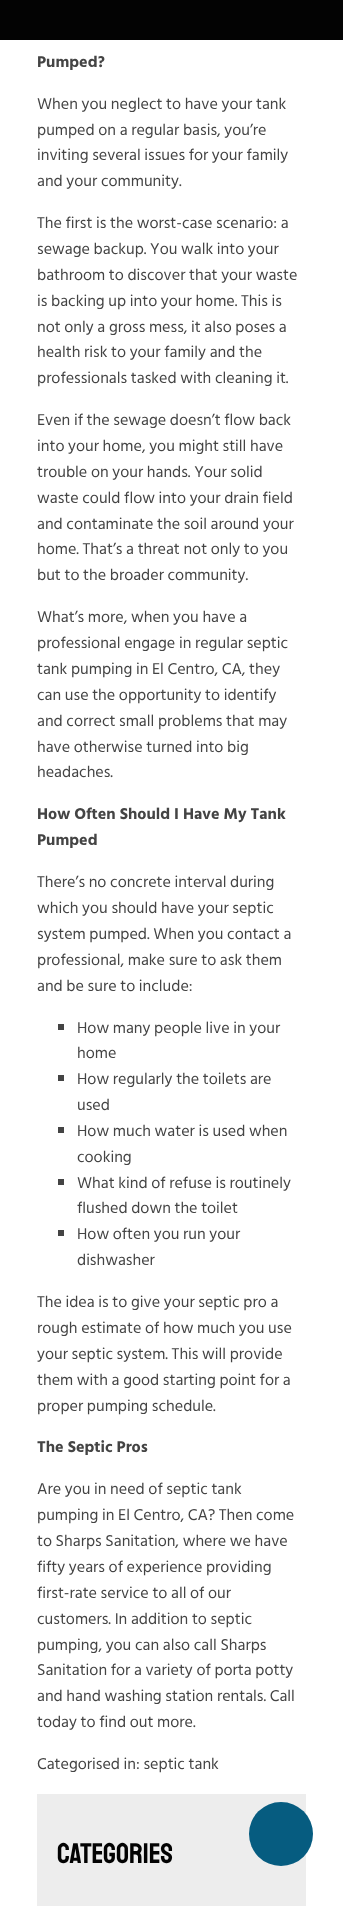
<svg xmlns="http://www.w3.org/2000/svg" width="343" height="1906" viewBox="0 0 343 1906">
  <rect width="100%" height="100%" fill="rgb(255,255,255)"/>
  <rect x="0" y="0" width="343" height="40" fill="rgb(3,3,3)"/>
  <text x="37" y="67" font-family="Hind Siliguri" font-size="16.1" font-weight="bold" fill="rgb(68,68,68)">Pumped?</text>
  <g font-family="Hind Siliguri" font-size="16.1" fill="rgb(68,68,68)">
    <text>
      <tspan x="37" y="109">When you neglect to have your tank</tspan>
      <tspan x="37" y="135">pumped on a regular basis, you’re</tspan>
      <tspan x="37" y="160">inviting several issues for your family</tspan>
      <tspan x="37" y="186">and your community.</tspan>
    </text>
    <text>
      <tspan x="37" y="228">The first is the worst-case scenario: a</tspan>
      <tspan x="37" y="254">sewage backup. You walk into your</tspan>
      <tspan x="37" y="280">bathroom to discover that your waste</tspan>
      <tspan x="37" y="306">is backing up into your home. This is</tspan>
      <tspan x="37" y="332">not only a gross mess, it also poses a</tspan>
      <tspan x="37" y="357">health risk to your family and the</tspan>
      <tspan x="37" y="383">professionals tasked with cleaning it.</tspan>
    </text>
    <text>
      <tspan x="37" y="425">Even if the sewage doesn’t flow back</tspan>
      <tspan x="37" y="451">into your home, you might still have</tspan>
      <tspan x="37" y="477">trouble on your hands. Your solid</tspan>
      <tspan x="37" y="503">waste could flow into your drain field</tspan>
      <tspan x="37" y="529">and contaminate the soil around your</tspan>
      <tspan x="37" y="554">home. That’s a threat not only to you</tspan>
      <tspan x="37" y="580">but to the broader community.</tspan>
    </text>
    <text>
      <tspan x="37" y="622">What’s more, when you have a</tspan>
      <tspan x="37" y="648">professional engage in regular septic</tspan>
      <tspan x="37" y="674">tank pumping in El Centro, CA, they</tspan>
      <tspan x="37" y="700">can use the opportunity to identify</tspan>
      <tspan x="37" y="726">and correct small problems that may</tspan>
      <tspan x="37" y="752">have otherwise turned into big</tspan>
      <tspan x="37" y="777">headaches.</tspan>
    </text>
  </g>
  <g font-family="Hind Siliguri" font-size="16.1" font-weight="bold" fill="rgb(68,68,68)">
    <text>
      <tspan x="37" y="819">How Often Should I Have My Tank</tspan>
      <tspan x="37" y="845">Pumped</tspan>
    </text>
  </g>
  <g font-family="Hind Siliguri" font-size="16.1" fill="rgb(68,68,68)">
    <text>
      <tspan x="37" y="887">There’s no concrete interval during</tspan>
      <tspan x="37" y="913">which you should have your septic</tspan>
      <tspan x="37" y="939">system pumped. When you contact a</tspan>
      <tspan x="37" y="965">professional, make sure to ask them</tspan>
      <tspan x="37" y="991">and be sure to include:</tspan>
    </text>
  </g>
  <rect x="58" y="1024" width="6" height="6" fill="rgb(68,68,68)"/>
  <g font-family="Hind Siliguri" font-size="16.1" fill="rgb(68,68,68)">
    <text>
      <tspan x="77" y="1033">How many people live in your</tspan>
      <tspan x="77" y="1058">home</tspan>
    </text>
  </g>
  <rect x="58" y="1075" width="6" height="6" fill="rgb(68,68,68)"/>
  <g font-family="Hind Siliguri" font-size="16.1" fill="rgb(68,68,68)">
    <text>
      <tspan x="77" y="1084">How regularly the toilets are</tspan>
      <tspan x="77" y="1110">used</tspan>
    </text>
  </g>
  <rect x="58" y="1127" width="6" height="6" fill="rgb(68,68,68)"/>
  <g font-family="Hind Siliguri" font-size="16.1" fill="rgb(68,68,68)">
    <text>
      <tspan x="77" y="1136">How much water is used when</tspan>
      <tspan x="77" y="1162">cooking</tspan>
    </text>
  </g>
  <rect x="58" y="1179" width="6" height="6" fill="rgb(68,68,68)"/>
  <g font-family="Hind Siliguri" font-size="16.1" fill="rgb(68,68,68)">
    <text>
      <tspan x="77" y="1188">What kind of refuse is routinely</tspan>
      <tspan x="77" y="1213">flushed down the toilet</tspan>
    </text>
  </g>
  <rect x="58" y="1230" width="6" height="6" fill="rgb(68,68,68)"/>
  <g font-family="Hind Siliguri" font-size="16.1" fill="rgb(68,68,68)">
    <text>
      <tspan x="77" y="1239">How often you run your</tspan>
      <tspan x="77" y="1265">dishwasher</tspan>
    </text>
    <text>
      <tspan x="37" y="1307">The idea is to give your septic pro a</tspan>
      <tspan x="37" y="1333">rough estimate of how much you use</tspan>
      <tspan x="37" y="1359">your septic system. This will provide</tspan>
      <tspan x="37" y="1385">them with a good starting point for a</tspan>
      <tspan x="37" y="1411">proper pumping schedule.</tspan>
    </text>
  </g>
  <text x="37" y="1452" font-family="Hind Siliguri" font-size="16.1" font-weight="bold" fill="rgb(68,68,68)">The Septic Pros</text>
  <g font-family="Hind Siliguri" font-size="16.1" fill="rgb(68,68,68)">
    <text>
      <tspan x="37" y="1494">Are you in need of septic tank</tspan>
      <tspan x="37" y="1520">pumping in El Centro, CA? Then come</tspan>
      <tspan x="37" y="1546">to Sharps Sanitation, where we have</tspan>
      <tspan x="37" y="1572">fifty years of experience providing</tspan>
      <tspan x="37" y="1598">first-rate service to all of our</tspan>
      <tspan x="37" y="1624">customers. In addition to septic</tspan>
      <tspan x="37" y="1650">pumping, you can also call Sharps</tspan>
      <tspan x="37" y="1675">Sanitation for a variety of porta potty</tspan>
      <tspan x="37" y="1701">and hand washing station rentals. Call</tspan>
      <tspan x="37" y="1727">today to find out more.</tspan>
    </text>
    <text x="37" y="1769">Categorised in: septic tank</text>
  </g>
  <rect x="37" y="1794" width="269" height="112" fill="rgb(237,237,237)"/>
  <text x="57" y="1863" font-family="Staatliches" font-size="28.5" fill="rgb(3,3,3)">Categories</text>
  <circle cx="281" cy="1834" r="32" fill="rgb(6,92,128)"/>
</svg>
